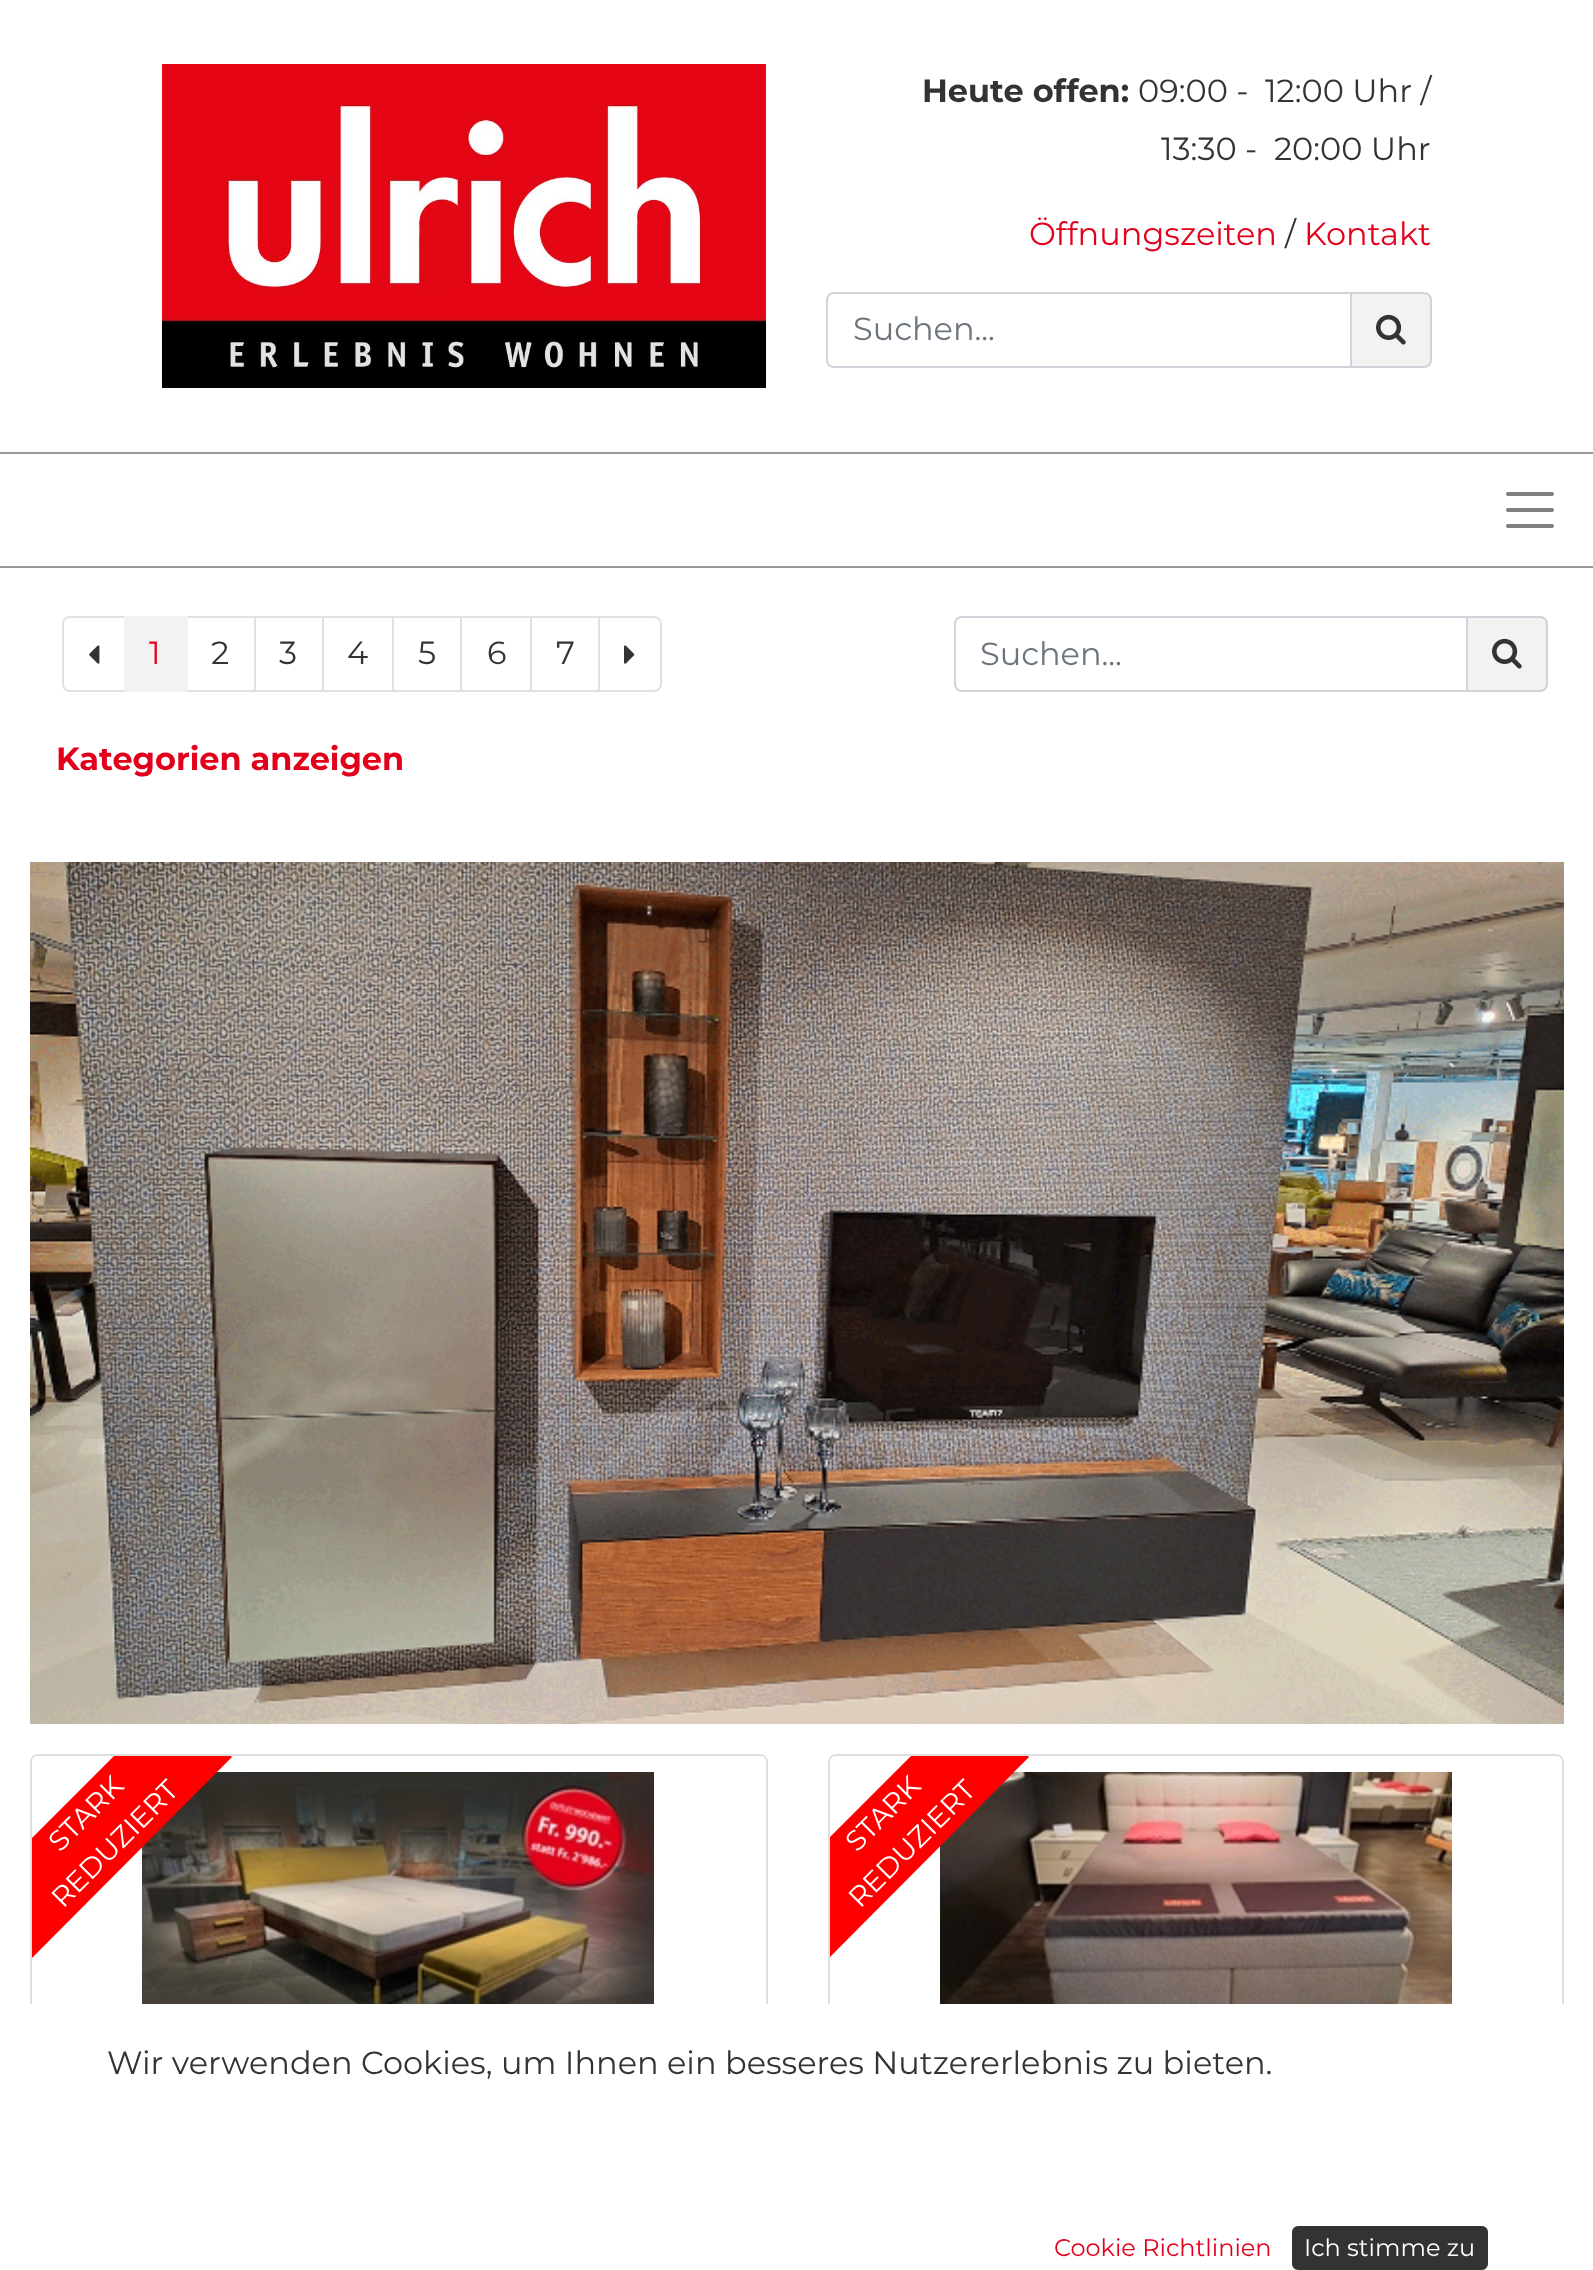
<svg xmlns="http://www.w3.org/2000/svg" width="1593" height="2270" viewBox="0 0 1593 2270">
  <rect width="100%" height="100%" fill="rgb(255,255,255)"/>
  <image x="162" y="64" width="604" height="324" href="pic1.png"/>
  <text x="922" y="102" font-family="Montserrat" font-size="32" font-weight="bold" fill="rgb(51,51,51)">Heute offen:</text>
  <g font-family="Montserrat" font-size="32" fill="rgb(51,51,51)">
    <text x="1138" y="102">09:00 -</text>
    <text x="1265" y="102">12:00 Uhr /</text>
    <text x="1161" y="160">13:30 -</text>
    <text x="1274" y="160">20:00 Uhr</text>
  </g>
  <text x="1029" y="245" font-family="Montserrat" font-size="32" fill="rgb(227,0,27)">Öffnungszeiten</text>
  <text x="1285" y="245" font-family="Montserrat" font-size="32" fill="rgb(51,51,51)">/</text>
  <text x="1304" y="245" font-family="Montserrat" font-size="32" fill="rgb(227,0,27)">Kontakt</text>
  <path d="M834 293H1351V367H834C830 367 827 364 827 360V300C827 296 830 293 834 293Z" fill="none" stroke="rgb(206,212,218)" stroke-width="2"/>
  <text x="853" y="340" font-family="Montserrat" font-size="32" fill="rgb(108,117,125)">Suchen...</text>
  <path d="M1351 293H1424C1428 293 1431 296 1431 300V360C1431 364 1428 367 1424 367H1351Z" fill="rgb(242,242,242)" stroke="rgb(206,212,218)" stroke-width="2"/>
  <image x="1376" y="314" width="30" height="31" href="pic2.png"/>
  <rect x="0" y="452" width="1593" height="2" fill="rgb(153,153,153)"/>
  <rect x="0" y="566" width="1593" height="2" fill="rgb(153,153,153)"/>
  <path d="M1508 494H1552M1508 510H1552M1508 526H1552" fill="none" stroke="rgb(128,128,128)" stroke-width="4" stroke-linecap="round"/>
  <path d="M70 617H125V691H70C66 691 63 688 63 684V624C63 620 66 617 70 617Z" fill="none" stroke="rgb(222,226,230)" stroke-width="2"/>
  <image x="89" y="645" width="11" height="19" href="pic3.png"/>
  <rect x="187" y="617" width="68" height="74" fill="none" stroke="rgb(222,226,230)" stroke-width="2"/>
  <rect x="124" y="616" width="64" height="76" fill="rgb(242,242,242)"/>
  <text x="149" y="664" font-family="Montserrat" font-size="32" fill="rgb(227,0,27)">1</text>
  <text x="211" y="664" font-family="Montserrat" font-size="32" fill="rgb(51,51,51)">2</text>
  <rect x="255" y="617" width="68" height="74" fill="none" stroke="rgb(222,226,230)" stroke-width="2"/>
  <text x="279" y="664" font-family="Montserrat" font-size="32" fill="rgb(51,51,51)">3</text>
  <rect x="323" y="617" width="70" height="74" fill="none" stroke="rgb(222,226,230)" stroke-width="2"/>
  <text x="347" y="664" font-family="Montserrat" font-size="32" fill="rgb(51,51,51)">4</text>
  <rect x="393" y="617" width="68" height="74" fill="none" stroke="rgb(222,226,230)" stroke-width="2"/>
  <text x="418" y="664" font-family="Montserrat" font-size="32" fill="rgb(51,51,51)">5</text>
  <rect x="461" y="617" width="70" height="74" fill="none" stroke="rgb(222,226,230)" stroke-width="2"/>
  <text x="487" y="664" font-family="Montserrat" font-size="32" fill="rgb(51,51,51)">6</text>
  <rect x="531" y="617" width="68" height="74" fill="none" stroke="rgb(222,226,230)" stroke-width="2"/>
  <text x="556" y="664" font-family="Montserrat" font-size="32" fill="rgb(51,51,51)">7</text>
  <path d="M599 617H654C658 617 661 620 661 624V684C661 688 658 691 654 691H599Z" fill="rgb(255,255,255)" stroke="rgb(222,226,230)" stroke-width="2"/>
  <image x="624" y="645" width="11" height="19" href="pic4.png"/>
  <path d="M962 617H1467V691H962C958 691 955 688 955 684V624C955 620 958 617 962 617Z" fill="none" stroke="rgb(206,212,218)" stroke-width="2"/>
  <text x="980" y="665" font-family="Montserrat" font-size="32" fill="rgb(108,117,125)">Suchen...</text>
  <path d="M1467 617H1540C1544 617 1547 620 1547 624V684C1547 688 1544 691 1540 691H1467Z" fill="rgb(242,242,242)" stroke="rgb(206,212,218)" stroke-width="2"/>
  <image x="1492" y="638" width="30" height="31" href="pic2.png"/>
  <text x="56" y="770" font-family="Montserrat" font-size="32" font-weight="bold" fill="rgb(227,0,27)">Kategorien anzeigen</text>
  <image x="30" y="862" width="1534" height="862" href="pic5.png"/>
  <rect x="31" y="1755" width="736" height="514" rx="7" fill="none" stroke="rgb(223,223,223)" stroke-width="2"/>
  <path d="M38 1756H760C763.5 1756 766 1758.5 766 1762V2076H32V1762C32 1758.5 34.5 1756 38 1756Z" fill="rgba(255,255,255,0.9)"/>
  <image x="142" y="1772" width="512" height="232" href="pic6.png"/>
  <path d="M231 1756L232 1757L32 1958V1838L114 1756Z" fill="rgb(255,0,0)"/>
  <g font-family="Montserrat" font-size="28" fill="rgb(255,255,255)">
    <text x="60" y="1853" transform="rotate(-45 60 1853)">STARK</text>
    <text x="63" y="1909" transform="rotate(-45 63 1909)">REDUZIERT</text>
  </g>
  <rect x="829" y="1755" width="734" height="514" rx="7" fill="none" stroke="rgb(223,223,223)" stroke-width="2"/>
  <path d="M836 1756H1556C1559.5 1756 1562 1758.5 1562 1762V2076H830V1762C830 1758.5 832.5 1756 836 1756Z" fill="rgba(255,255,255,0.9)"/>
  <image x="940" y="1772" width="512" height="232" href="pic7.png"/>
  <path d="M1028 1756L1029 1757L830 1957V1837L911 1756Z" fill="rgb(255,0,0)"/>
  <g font-family="Montserrat" font-size="28" fill="rgb(255,255,255)">
    <text x="857" y="1853" transform="rotate(-45 857 1853)">STARK</text>
    <text x="860" y="1909" transform="rotate(-45 860 1909)">REDUZIERT</text>
  </g>
  <rect x="30" y="2004" width="1534" height="266" fill="rgb(255,255,255)"/>
  <text x="107" y="2074" font-family="Montserrat" font-size="32" fill="rgb(51,51,51)">Wir verwenden Cookies, um Ihnen ein besseres Nutzererlebnis zu bieten.</text>
  <text x="1054" y="2256" font-family="Montserrat" font-size="24" fill="rgb(227,0,27)">Cookie Richtlinien</text>
  <rect x="1293" y="2227" width="194" height="42" rx="5" fill="rgb(51,51,51)" stroke="rgb(51,51,51)" stroke-width="2"/>
  <text x="1304" y="2256" font-family="Montserrat" font-size="24" fill="rgb(255,255,255)">Ich stimme zu</text>
</svg>
